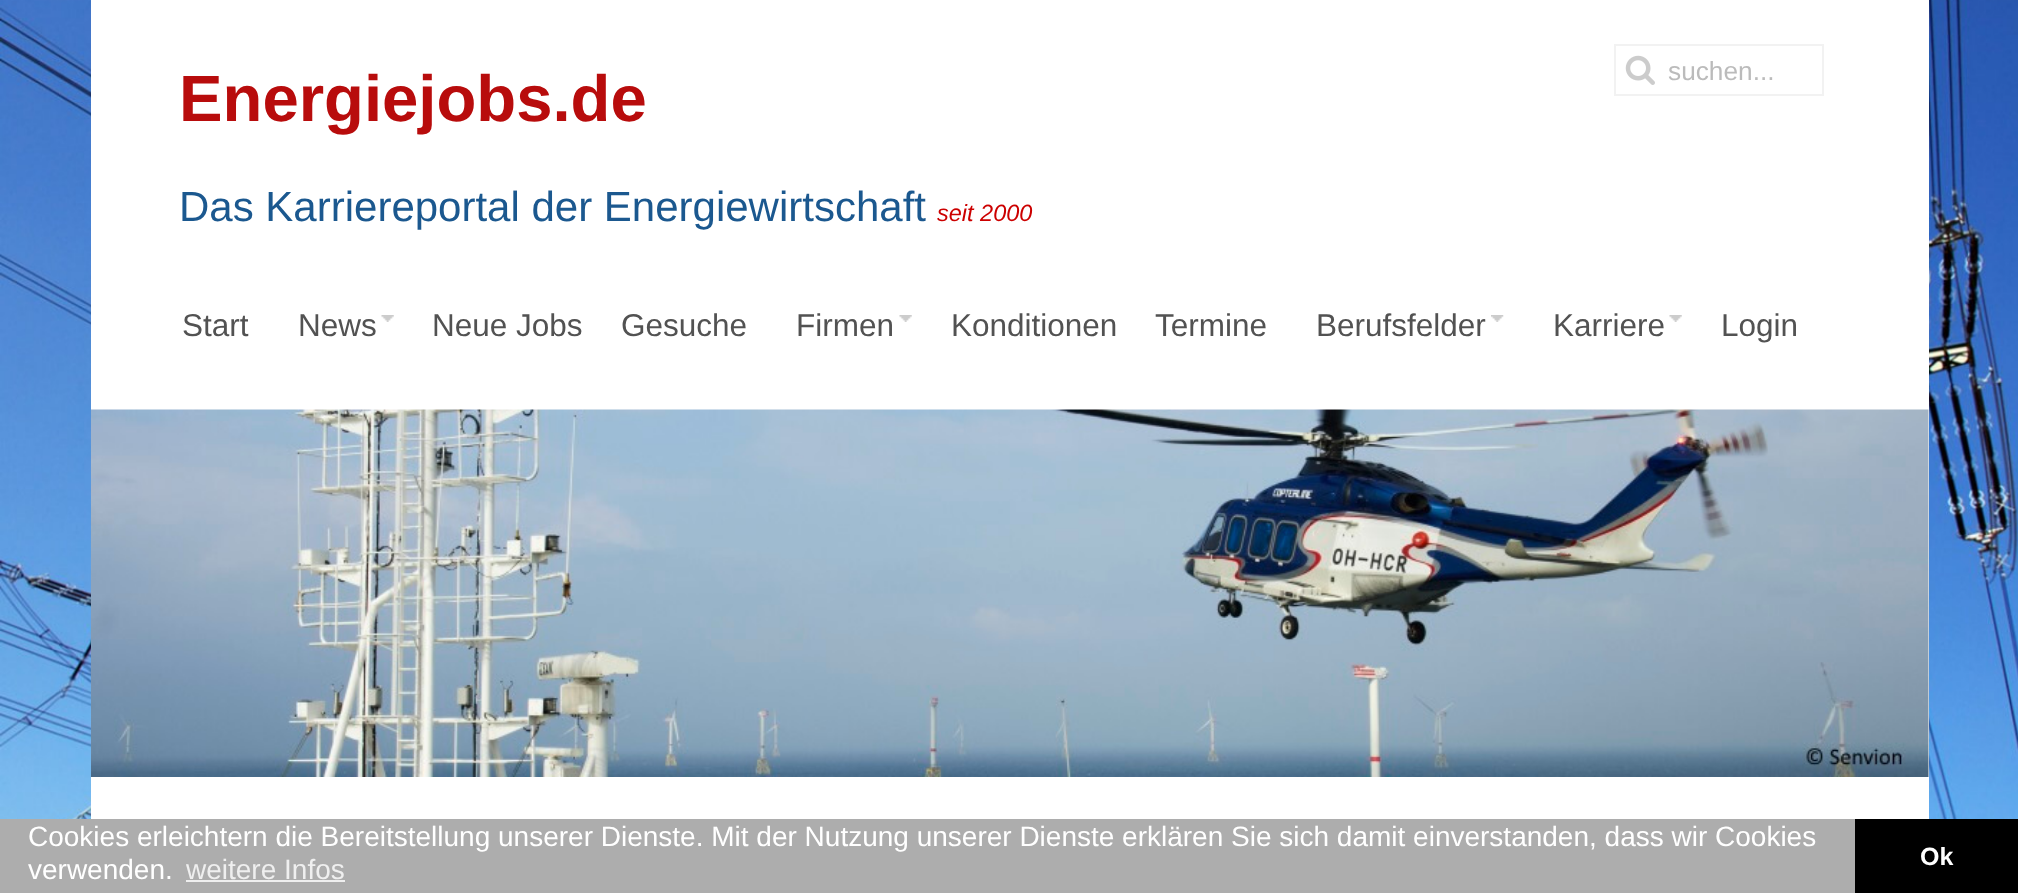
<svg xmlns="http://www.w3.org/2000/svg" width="2018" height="893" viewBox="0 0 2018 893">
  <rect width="100%" height="100%" fill="rgb(255,255,255)"/>
  <image x="0" y="0" width="2018" height="819" href="pic1.png"/>
  <rect x="91" y="0" width="1838" height="819" fill="rgb(255,255,255)"/>
  <rect x="1615" y="45" width="208" height="50" fill="none" stroke="rgb(242,242,242)" stroke-width="2"/>
  <image x="1625" y="55" width="30" height="30" href="pic2.png"/>
  <text x="1668" y="80" font-family="Liberation Sans" font-size="26.25" fill="rgb(187,187,187)">suchen...</text>
  <text x="179" y="121" font-family="Liberation Sans" font-size="65.25" font-weight="bold" fill="rgb(184,12,12)">Energiejobs.de</text>
  <text x="179" y="221" font-family="Liberation Sans" font-size="42" fill="rgb(27,88,143)">Das Karriereportal der Energiewirtschaft</text>
  <text x="937" y="221" font-family="Liberation Sans" font-size="23.5" font-style="italic" fill="rgb(204,0,0)">seit 2000</text>
  <text x="182" y="336" font-family="Liberation Sans" font-size="31.5" fill="rgb(82,82,82)">Start</text>
  <image x="381" y="315" width="13" height="7" href="pic3.png"/>
  <g font-family="Liberation Sans" font-size="31.5" fill="rgb(82,82,82)">
    <text x="298" y="336">News</text>
    <text x="432" y="336">Neue Jobs</text>
    <text x="621" y="336">Gesuche</text>
  </g>
  <image x="899" y="315" width="13" height="7" href="pic3.png"/>
  <g font-family="Liberation Sans" font-size="31.5" fill="rgb(82,82,82)">
    <text x="796" y="336">Firmen</text>
    <text x="951" y="336">Konditionen</text>
    <text x="1155" y="336">Termine</text>
  </g>
  <image x="1491" y="315" width="13" height="7" href="pic4.png"/>
  <text x="1316" y="336" font-family="Liberation Sans" font-size="31.5" fill="rgb(82,82,82)">Berufsfelder</text>
  <image x="1669" y="315" width="13" height="7" href="pic3.png"/>
  <g font-family="Liberation Sans" font-size="31.5" fill="rgb(82,82,82)">
    <text x="1553" y="336">Karriere</text>
    <text x="1721" y="336">Login</text>
  </g>
  <image x="91" y="409" width="1838" height="368" href="pic5.png"/>
  <rect x="0" y="819" width="1855" height="74" fill="rgb(173,173,173)"/>
  <g font-family="Liberation Sans" font-size="28" fill="rgb(255,255,255)">
    <text>
      <tspan x="28" y="846">Cookies erleichtern die Bereitstellung unserer Dienste. Mit der Nutzung unserer Dienste erklären Sie sich damit einverstanden, dass wir Cookies</tspan>
      <tspan x="28" y="879">verwenden.</tspan>
    </text>
  </g>
  <text x="186" y="879" font-family="Liberation Sans" font-size="28" fill="rgb(239,239,239)">weitere Infos</text>
  <rect x="186" y="880" width="159" height="2" fill="rgb(239,239,239)"/>
  <rect x="1855" y="819" width="163" height="74" fill="rgb(0,0,0)"/>
  <text x="1920" y="865" font-family="Liberation Sans" font-size="25" font-weight="bold" fill="rgb(255,255,255)">Ok</text>
</svg>
